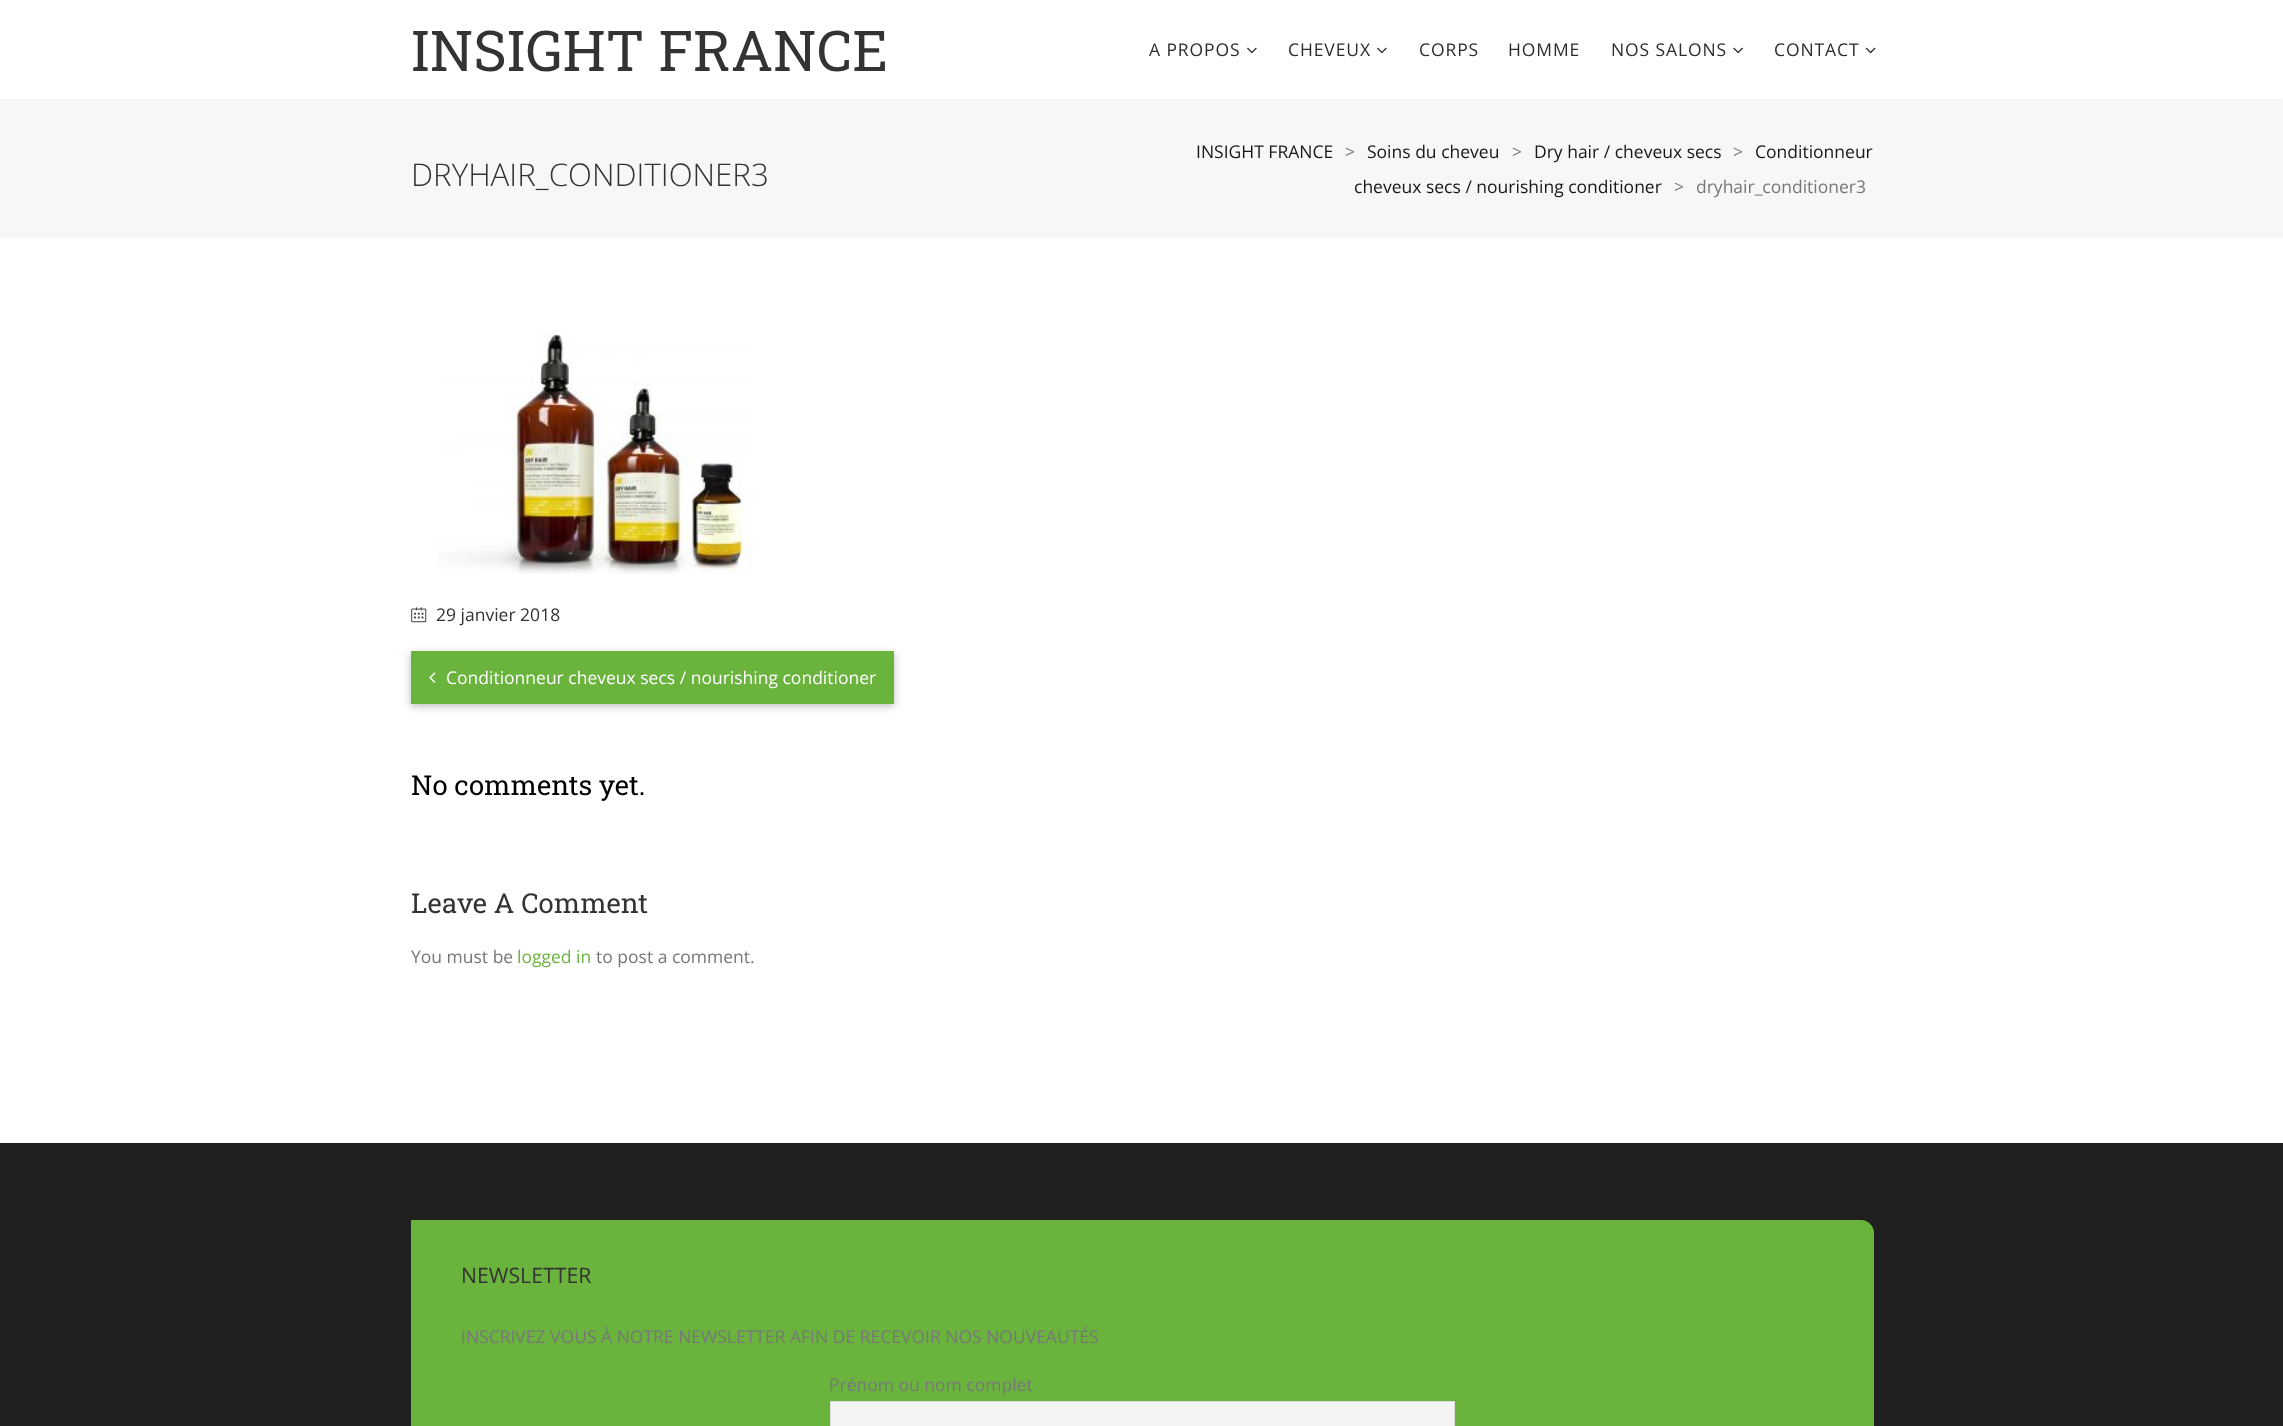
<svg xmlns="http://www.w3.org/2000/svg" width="2283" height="1426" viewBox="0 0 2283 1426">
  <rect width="100%" height="100%" fill="rgb(255,255,255)"/>
  <path d="M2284 100H0L1 99H2282Z" fill="rgb(242,242,242)"/>
  <text x="411" y="71" font-family="Roboto Slab" font-size="56.25" fill="rgb(51,51,51)">INSIGHT FRANCE</text>
  <text x="1149" y="56" font-family="Open Sans" font-size="17.5" letter-spacing="0.9" fill="rgb(43,43,43)">A PROPOS</text>
  <image x="1247" y="47" width="10" height="7" href="pic1.png"/>
  <text x="1288" y="56" font-family="Open Sans" font-size="17.5" letter-spacing="0.9" fill="rgb(43,43,43)">CHEVEUX</text>
  <image x="1377" y="47" width="10" height="7" href="pic1.png"/>
  <g font-family="Open Sans" font-size="17.5" letter-spacing="0.9" fill="rgb(43,43,43)">
    <text x="1419" y="56">CORPS</text>
    <text x="1508" y="56">HOMME</text>
    <text x="1611" y="56">NOS SALONS</text>
  </g>
  <image x="1733" y="47" width="10" height="7" href="pic2.png"/>
  <text x="1774" y="56" font-family="Open Sans" font-size="17.5" letter-spacing="0.9" fill="rgb(43,43,43)">CONTACT</text>
  <image x="1865" y="47" width="11" height="7" href="pic3.png"/>
  <rect x="0" y="100" width="2283" height="138" fill="rgb(247,247,247)"/>
  <text x="411" y="186" font-family="Open Sans" font-size="31.25" font-weight="300" fill="rgb(51,51,51)">DRYHAIR_CONDITIONER3</text>
  <text x="1196" y="158" font-family="Open Sans" font-size="17.5" fill="rgb(23,23,23)">INSIGHT FRANCE</text>
  <text x="1345" y="158" font-family="Open Sans" font-size="17.5" fill="rgb(119,119,119)">&gt;</text>
  <text x="1367" y="158" font-family="Open Sans" font-size="17.5" fill="rgb(23,23,23)">Soins du cheveu</text>
  <text x="1512" y="158" font-family="Open Sans" font-size="17.5" fill="rgb(119,119,119)">&gt;</text>
  <text x="1534" y="158" font-family="Open Sans" font-size="17.5" fill="rgb(23,23,23)">Dry hair / cheveux secs</text>
  <text x="1733" y="158" font-family="Open Sans" font-size="17.5" fill="rgb(119,119,119)">&gt;</text>
  <g font-family="Open Sans" font-size="17.5" fill="rgb(23,23,23)">
    <text x="1755" y="158">Conditionneur</text>
    <text x="1354" y="193">cheveux secs / nourishing conditioner</text>
  </g>
  <g font-family="Open Sans" font-size="17.5" fill="rgb(119,119,119)">
    <text x="1674" y="193">&gt;</text>
    <text x="1696" y="193">dryhair_conditioner3</text>
  </g>
  <image x="437" y="331" width="315" height="243" href="pic4.png"/>
  <image x="411" y="607" width="16" height="16" href="pic5.png"/>
  <text x="436" y="621" font-family="Open Sans" font-size="17.5" fill="rgb(51,51,51)">29 janvier 2018</text>
  <rect x="411" y="654" width="483" height="52" fill="rgba(0,0,0,0.12)" filter="blur(6px)"/>
  <rect x="411" y="654" width="483" height="52" fill="rgba(0,0,0,0.16)" filter="blur(3px)"/>
  <rect x="411" y="651" width="483" height="53" fill="rgb(106,180,62)"/>
  <image x="429" y="672" width="7" height="11" href="pic6.png"/>
  <text x="446" y="684" font-family="Open Sans" font-size="17.5" fill="rgb(255,255,255)">Conditionneur cheveux secs / nourishing conditioner</text>
  <text x="411" y="795" font-family="Roboto Slab" font-size="27.5" fill="rgb(0,0,0)">No comments yet.</text>
  <text x="411" y="913" font-family="Roboto Slab" font-size="27.5" fill="rgb(51,51,51)">Leave A Comment</text>
  <text x="411" y="963" font-family="Open Sans" font-size="17.5" fill="rgb(119,119,119)">You must be</text>
  <text x="517" y="963" font-family="Open Sans" font-size="17.5" fill="rgb(106,180,62)">logged in</text>
  <text x="596" y="963" font-family="Open Sans" font-size="17.5" fill="rgb(119,119,119)">to post a comment.</text>
  <rect x="0" y="1143" width="2283" height="283" fill="rgb(32,32,32)"/>
  <path d="M411 1220H1861C1868 1220 1874 1226 1874 1233V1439H424C417 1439 411 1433 411 1426Z" fill="rgb(106,180,62)"/>
  <text x="461" y="1283" font-family="Open Sans" font-size="21.25" fill="rgb(51,51,51)">NEWSLETTER</text>
  <g font-family="Open Sans" font-size="17.5" fill="rgb(119,119,119)">
    <text x="461" y="1343">INSCRIVEZ VOUS À NOTRE NEWSLETTER AFIN DE RECEVOIR NOS NOUVEAUTÉS</text>
    <text x="829" y="1391">Prénom ou nom complet</text>
  </g>
  <rect x="830.5" y="1401.5" width="624" height="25" fill="rgb(244,244,244)" stroke="rgb(221,221,221)"/>
</svg>
